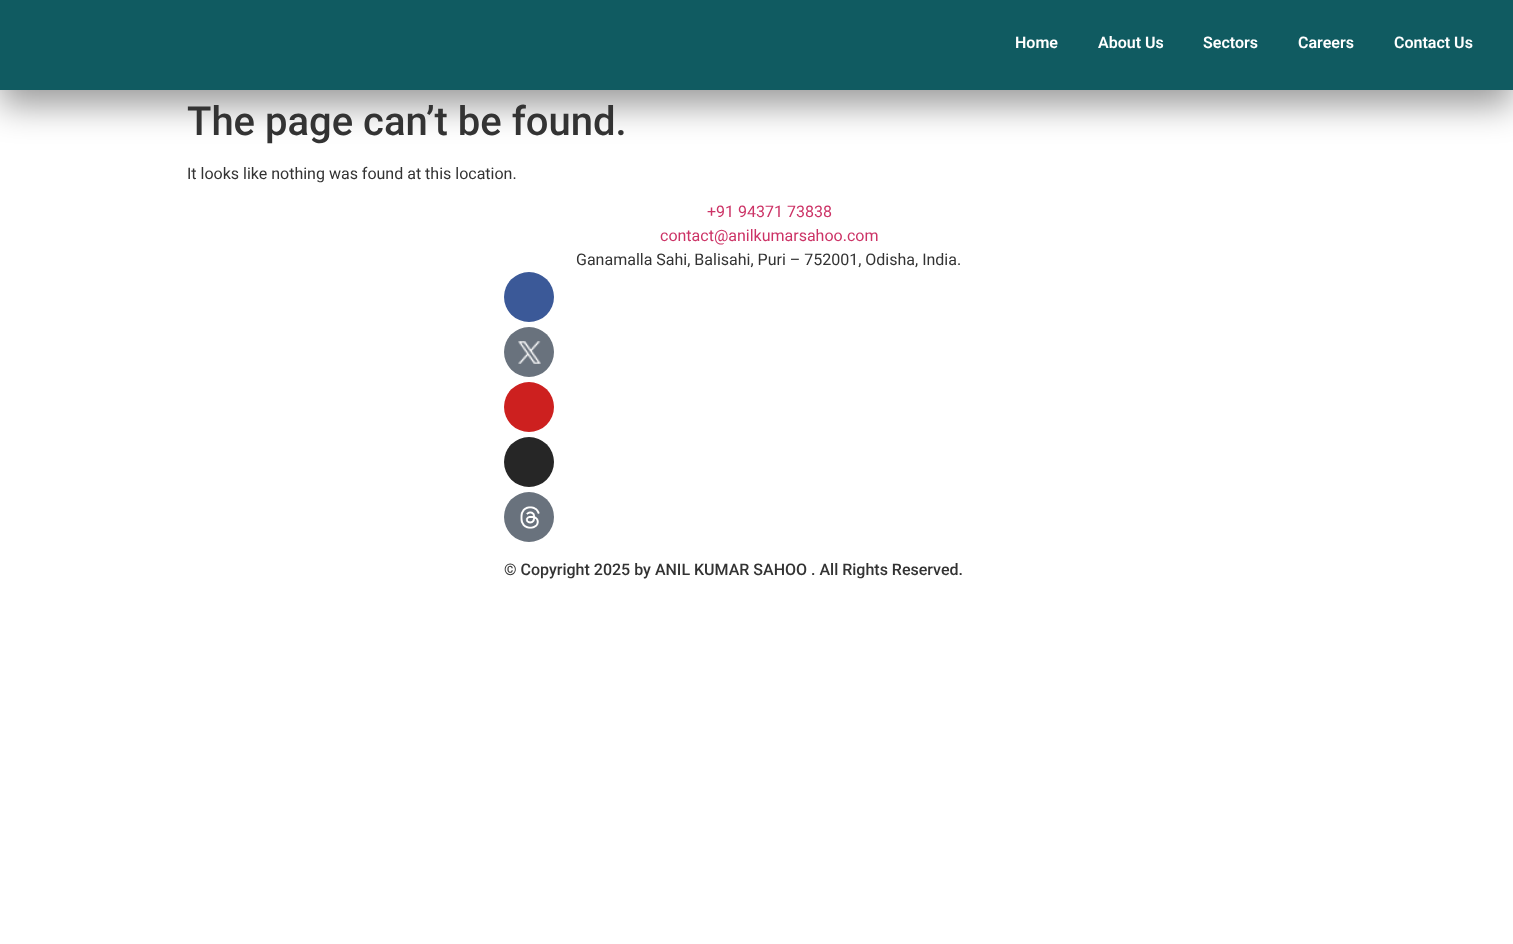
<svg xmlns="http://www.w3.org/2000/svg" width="1513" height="944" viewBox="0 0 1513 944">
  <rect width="100%" height="100%" fill="rgb(255,255,255)"/>
  <rect x="0" y="15" width="1513" height="90" fill="rgba(0,0,0,0.4)" filter="blur(17.5px)"/>
  <rect x="0" y="0" width="1513" height="90" fill="rgb(16,91,97)"/>
  <g font-family="Roboto" font-size="16" font-weight="600" fill="rgb(255,255,255)">
    <text x="1015" y="48">Home</text>
    <text x="1098" y="48">About Us</text>
    <text x="1203" y="48">Sectors</text>
    <text x="1298" y="48">Careers</text>
    <text x="1394" y="48">Contact Us</text>
  </g>
  <text x="187" y="135" font-family="Roboto" font-size="40" font-weight="500" fill="rgb(51,51,51)">The page can’t be found.</text>
  <text x="187" y="179" font-family="Roboto" font-size="16" fill="rgb(51,51,51)">It looks like nothing was found at this location.</text>
  <g font-family="Roboto" font-size="16" fill="rgb(204,51,102)">
    <text x="707" y="217">+91 94371 73838</text>
    <text x="660" y="241">contact@anilkumarsahoo.com</text>
  </g>
  <text x="576" y="265" font-family="Roboto" font-size="16" fill="rgb(51,51,51)">Ganamalla Sahi, Balisahi, Puri – 752001, Odisha, India.</text>
  <circle cx="529" cy="297" r="25" fill="rgb(59,89,152)"/>
  <circle cx="529" cy="352" r="25" fill="rgb(105,114,125)"/>
  <image x="518" y="341" width="23" height="23" href="pic1.png"/>
  <circle cx="529" cy="407" r="25" fill="rgb(205,32,31)"/>
  <circle cx="529" cy="462" r="25" fill="rgb(38,38,38)"/>
  <circle cx="529" cy="517" r="25" fill="rgb(105,114,125)"/>
  <image x="520" y="506" width="20" height="23" href="pic2.png"/>
  <text x="504" y="575" font-family="Roboto" font-size="16" font-weight="500" fill="rgb(51,51,51)">© Copyright 2025 by ANIL KUMAR SAHOO . All Rights Reserved.</text>
</svg>
